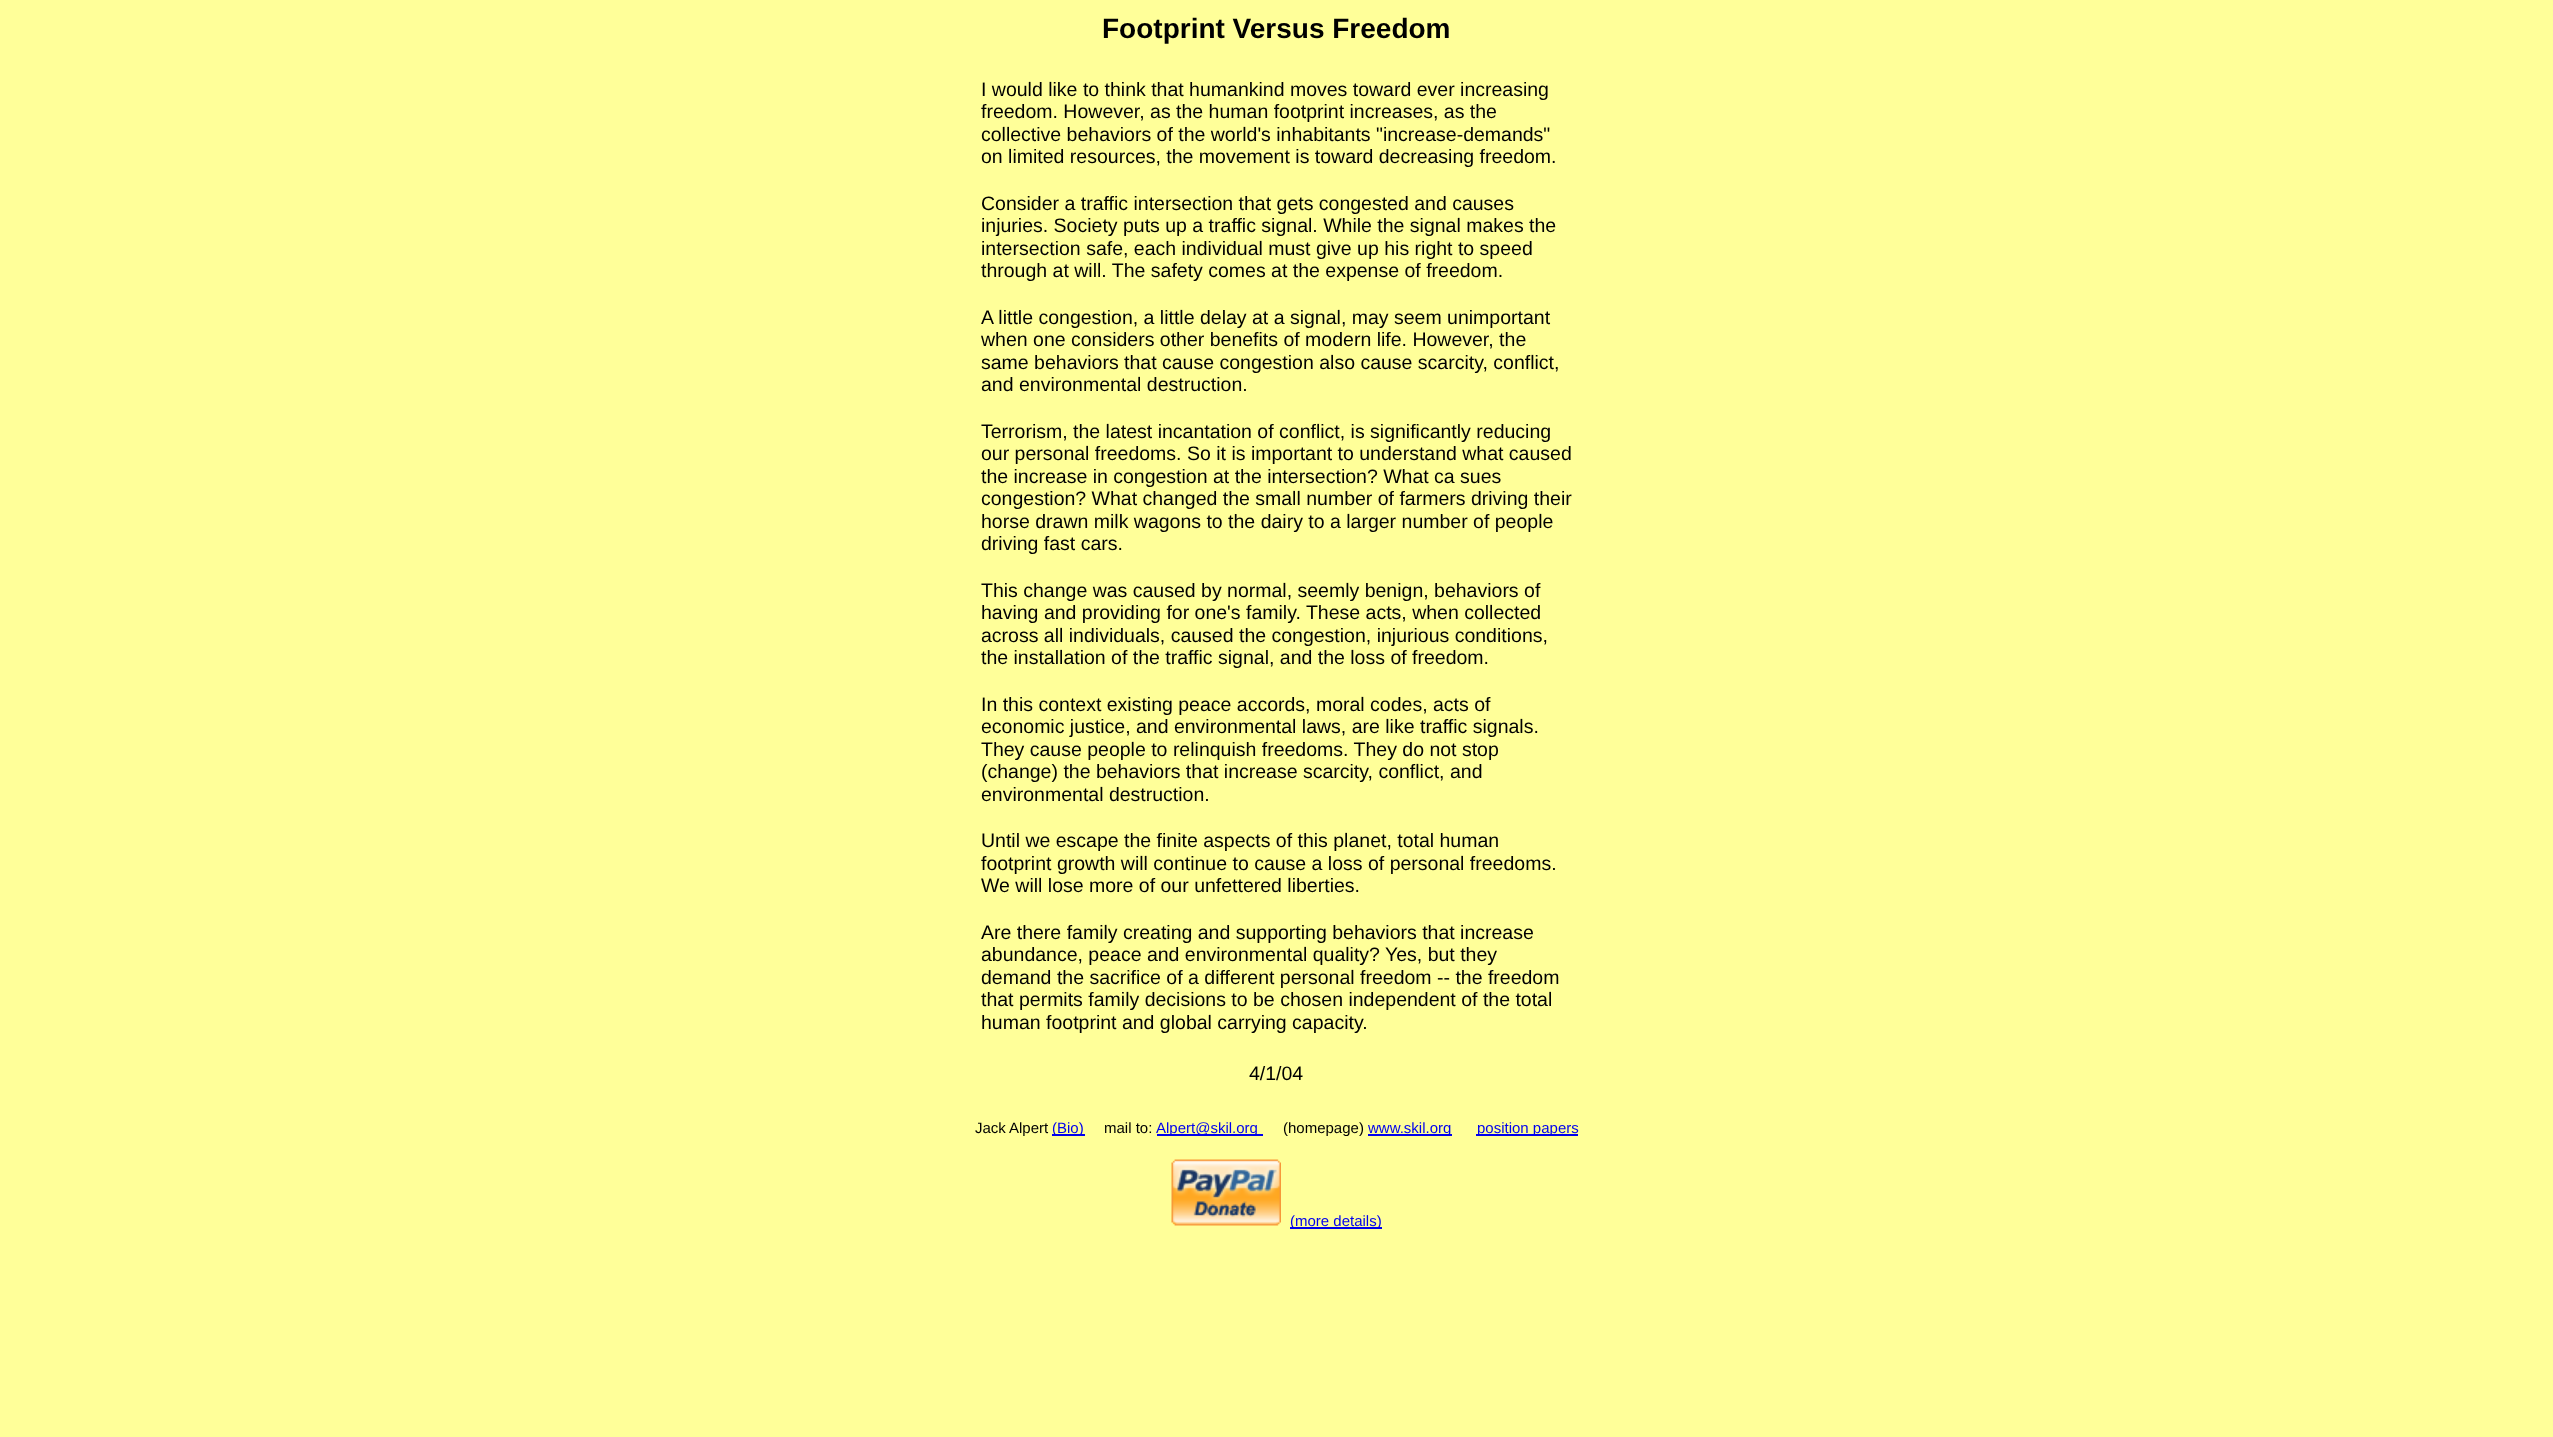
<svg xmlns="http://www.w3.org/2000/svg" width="2553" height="1437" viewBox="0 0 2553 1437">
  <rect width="100%" height="100%" fill="rgb(255,255,153)"/>
  <text x="1102" y="38" font-family="Liberation Sans" font-size="28" font-weight="bold" fill="rgb(0,0,0)">Footprint Versus Freedom</text>
  <g font-family="Liberation Sans" font-size="19.5" fill="rgb(0,0,0)">
    <text>
      <tspan x="981" y="96">I would like to think that humankind moves toward ever increasing</tspan>
      <tspan x="981" y="118">freedom. However, as the human footprint increases, as the</tspan>
      <tspan x="981" y="141">collective behaviors of the world's inhabitants "increase-demands"</tspan>
      <tspan x="981" y="163">on limited resources, the movement is toward decreasing freedom.</tspan>
    </text>
    <text>
      <tspan x="981" y="210">Consider a traffic intersection that gets congested and causes</tspan>
      <tspan x="981" y="232">injuries. Society puts up a traffic signal. While the signal makes the</tspan>
      <tspan x="981" y="255">intersection safe, each individual must give up his right to speed</tspan>
      <tspan x="981" y="277">through at will. The safety comes at the expense of freedom.</tspan>
    </text>
    <text>
      <tspan x="981" y="324">A little congestion, a little delay at a signal, may seem unimportant</tspan>
      <tspan x="981" y="346">when one considers other benefits of modern life. However, the</tspan>
      <tspan x="981" y="369">same behaviors that cause congestion also cause scarcity, conflict,</tspan>
      <tspan x="981" y="391">and environmental destruction.</tspan>
    </text>
    <text>
      <tspan x="981" y="438">Terrorism, the latest incantation of conflict, is significantly reducing</tspan>
      <tspan x="981" y="460">our personal freedoms. So it is important to understand what caused</tspan>
      <tspan x="981" y="483">the increase in congestion at the intersection? What ca sues</tspan>
      <tspan x="981" y="505">congestion? What changed the small number of farmers driving their</tspan>
      <tspan x="981" y="528">horse drawn milk wagons to the dairy to a larger number of people</tspan>
      <tspan x="981" y="550">driving fast cars.</tspan>
    </text>
    <text>
      <tspan x="981" y="597">This change was caused by normal, seemly benign, behaviors of</tspan>
      <tspan x="981" y="619">having and providing for one's family. These acts, when collected</tspan>
      <tspan x="981" y="642">across all individuals, caused the congestion, injurious conditions,</tspan>
      <tspan x="981" y="664">the installation of the traffic signal, and the loss of freedom.</tspan>
    </text>
    <text>
      <tspan x="981" y="711">In this context existing peace accords, moral codes, acts of</tspan>
      <tspan x="981" y="733">economic justice, and environmental laws, are like traffic signals.</tspan>
      <tspan x="981" y="756">They cause people to relinquish freedoms. They do not stop</tspan>
      <tspan x="981" y="778">(change) the behaviors that increase scarcity, conflict, and</tspan>
      <tspan x="981" y="801">environmental destruction.</tspan>
    </text>
    <text>
      <tspan x="981" y="847">Until we escape the finite aspects of this planet, total human</tspan>
      <tspan x="981" y="870">footprint growth will continue to cause a loss of personal freedoms.</tspan>
      <tspan x="981" y="892">We will lose more of our unfettered liberties.</tspan>
    </text>
    <text>
      <tspan x="981" y="939">Are there family creating and supporting behaviors that increase</tspan>
      <tspan x="981" y="961">abundance, peace and environmental quality? Yes, but they</tspan>
      <tspan x="981" y="984">demand the sacrifice of a different personal freedom -- the freedom</tspan>
      <tspan x="981" y="1006">that permits family decisions to be chosen independent of the total</tspan>
      <tspan x="981" y="1029">human footprint and global carrying capacity.</tspan>
    </text>
    <text x="1249" y="1080">4/1/04</text>
  </g>
  <g font-family="Liberation Sans" font-size="15" fill="rgb(0,0,0)">
    <text x="975" y="1133">Jack</text>
    <text x="1009" y="1133">Alpert</text>
  </g>
  <rect x="1052" y="1134" width="33" height="2" fill="rgb(0,0,238)"/>
  <text x="1052" y="1133" font-family="Liberation Sans" font-size="15" fill="rgb(0,0,238)">(Bio)</text>
  <text x="1104" y="1133" font-family="Liberation Sans" font-size="15" fill="rgb(0,0,0)">mail to:</text>
  <rect x="1157" y="1134" width="106" height="2" fill="rgb(0,0,238)"/>
  <text x="1156" y="1133" font-family="Liberation Sans" font-size="15" fill="rgb(0,0,238)">Alpert@skil.org</text>
  <text x="1283" y="1133" font-family="Liberation Sans" font-size="15" fill="rgb(0,0,0)">(homepage)</text>
  <rect x="1368" y="1134" width="84" height="2" fill="rgb(0,0,238)"/>
  <text x="1368" y="1133" font-family="Liberation Sans" font-size="15" fill="rgb(0,0,238)">www.skil.org</text>
  <rect x="1476" y="1134" width="102" height="2" fill="rgb(0,0,238)"/>
  <text x="1477" y="1133" font-family="Liberation Sans" font-size="15" fill="rgb(0,0,238)">position papers</text>
  <image x="1171" y="1159" width="110" height="67" href="pic1.png"/>
  <rect x="1290" y="1227" width="92" height="2" fill="rgb(0,0,238)"/>
  <text x="1290" y="1226" font-family="Liberation Sans" font-size="15" fill="rgb(0,0,238)">(more details)</text>
</svg>
